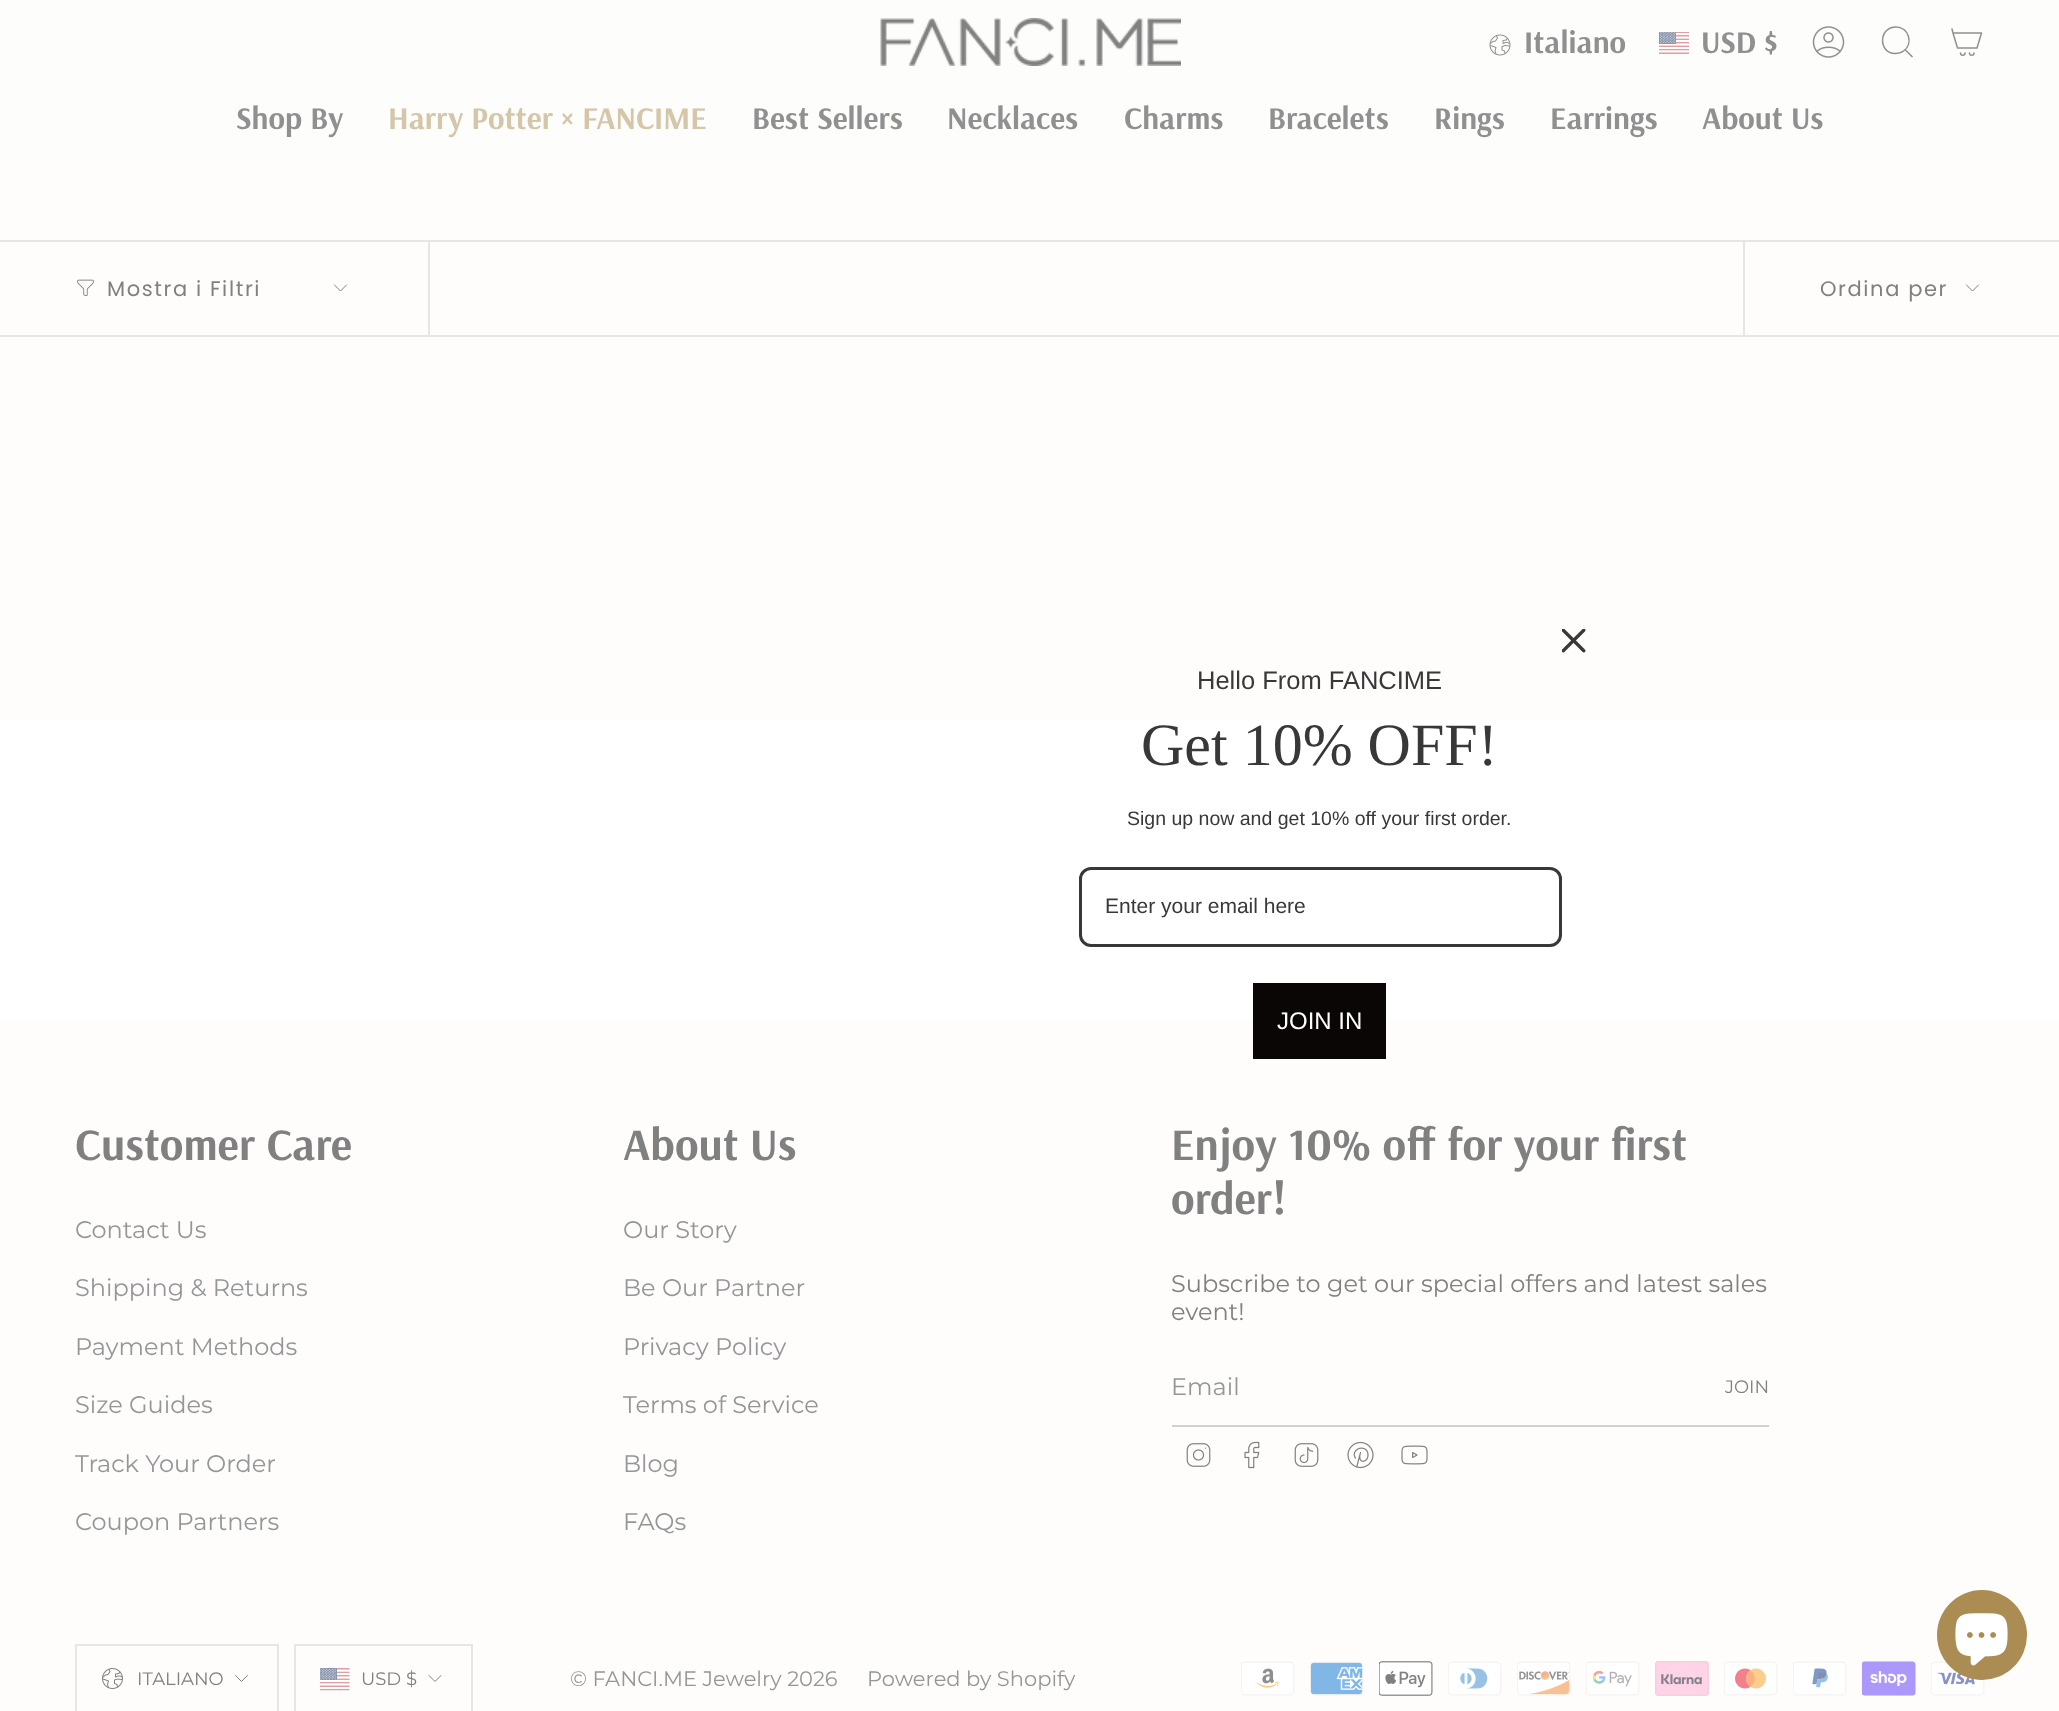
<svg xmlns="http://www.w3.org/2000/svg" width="2059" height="1711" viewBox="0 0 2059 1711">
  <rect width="100%" height="100%" fill="rgb(255,255,255)"/>
  <rect x="0" y="0" width="2059" height="167" fill="rgb(253,253,251)"/>
  <image x="880" y="18" width="301" height="48" href="pic1.png"/>
  <image x="1489" y="34" width="22" height="22" href="pic2.png"/>
  <text x="1524" y="53" font-family="Arsenal" font-size="31.5" font-weight="bold" fill="rgb(144,144,144)">Italiano</text>
  <image x="1659" y="32" width="30" height="22" href="pic3.png"/>
  <text x="1701" y="53" font-family="Arsenal" font-size="31.5" font-weight="bold" fill="rgb(144,144,144)">USD $</text>
  <image x="1812" y="26" width="33" height="32" href="pic4.png"/>
  <path d="M1896 27C1908.5 27 1914 43.5 1903.5 51C1901 53 1898 53.5 1895 53.5C1878 53 1878.5 27 1896 27ZM1905 49.5L1912.5 57" fill="none" stroke="rgb(144,144,144)" stroke-width="1.5"/>
  <path d="M1953 33H1981.5L1977 48H1957.5ZM1953 33L1952 29M1965 53C1965 56 1960.5 56 1960.5 53M1974 53C1974 56 1969.5 56 1969.5 53" fill="none" stroke="rgb(144,144,144)" stroke-width="1.5" stroke-linecap="round" stroke-linejoin="round"/>
  <text x="236" y="129" font-family="Arsenal" font-size="31.5" font-weight="bold" fill="rgb(144,144,144)">Shop By</text>
  <text x="388" y="129" font-family="Arsenal" font-size="31.5" font-weight="bold" fill="rgb(213,198,169)">Harry Potter × FANCIME</text>
  <g font-family="Arsenal" font-size="31.5" font-weight="bold" fill="rgb(144,144,144)">
    <text x="752" y="129">Best Sellers</text>
    <text x="947" y="129">Necklaces</text>
    <text x="1124" y="129">Charms</text>
    <text x="1268" y="129">Bracelets</text>
    <text x="1434" y="129">Rings</text>
    <text x="1550" y="129">Earrings</text>
    <text x="1702" y="129">About Us</text>
  </g>
  <rect x="0" y="167" width="2059" height="73" fill="rgb(254,253,252)"/>
  <rect x="0" y="242" width="2059" height="93" fill="rgb(254,253,252)"/>
  <rect x="0" y="337" width="2059" height="383" fill="rgb(254,253,252)"/>
  <rect x="0" y="240" width="2059" height="2" fill="rgb(232,230,226)"/>
  <rect x="0" y="335" width="2059" height="2" fill="rgb(232,230,226)"/>
  <rect x="428" y="242" width="2" height="93" fill="rgb(232,230,226)"/>
  <image x="77" y="279" width="17" height="18" href="pic5.png"/>
  <text x="107" y="296" font-family="Poppins" font-size="21" letter-spacing="1.6" fill="rgb(128,128,128)">Mostra i Filtri</text>
  <path d="M334.5 285L340.5 291L346.5 285" fill="none" stroke="rgb(128,128,128)" stroke-linecap="round" stroke-linejoin="round"/>
  <rect x="1743" y="242" width="2" height="93" fill="rgb(232,230,226)"/>
  <text x="1820" y="296" font-family="Poppins" font-size="21" letter-spacing="1.6" fill="rgb(128,128,128)">Ordina per</text>
  <path d="M1966.5 285L1972.5 291L1978.5 285" fill="none" stroke="rgb(128,128,128)" stroke-linecap="round" stroke-linejoin="round"/>
  <image x="1562" y="629" width="24" height="24" href="pic6.png"/>
  <text x="1197" y="689" font-family="Liberation Sans" font-size="25.5" fill="rgb(56,56,56)">Hello From FANCIME</text>
  <text x="1141" y="765" font-family="Liberation Serif" font-size="60" fill="rgb(56,56,56)">Get 10% OFF!</text>
  <text x="1127" y="825" font-family="Liberation Sans" font-size="19.5" fill="rgb(56,56,56)">Sign up now and get 10% off your first order.</text>
  <rect x="1080.5" y="868.5" width="480" height="77" rx="10.5" fill="none" stroke="rgb(56,56,56)" stroke-width="3"/>
  <text x="1105" y="913" font-family="Liberation Sans" font-size="21" fill="rgb(56,56,56)">Enter your email here</text>
  <rect x="0" y="1019" width="2059" height="692" fill="rgb(254,253,252)"/>
  <rect x="1253" y="983" width="133" height="76" fill="rgb(10,6,5)"/>
  <text x="1277" y="1029" font-family="Liberation Sans" font-size="24" fill="rgb(255,255,255)">JOIN IN</text>
  <text x="75" y="1160" font-family="Arsenal" font-size="45" font-weight="bold" fill="rgb(128,128,128)">Customer Care</text>
  <g font-family="Montserrat" font-size="24" fill="rgb(148,150,151)">
    <text x="75" y="1238">Contact Us</text>
    <text x="75" y="1296">Shipping &amp; Returns</text>
    <text x="75" y="1355">Payment Methods</text>
    <text x="75" y="1413">Size Guides</text>
    <text x="75" y="1472">Track Your Order</text>
    <text x="75" y="1530">Coupon Partners</text>
  </g>
  <text x="623" y="1160" font-family="Arsenal" font-size="45" font-weight="bold" fill="rgb(128,128,128)">About Us</text>
  <g font-family="Montserrat" font-size="24" fill="rgb(148,150,151)">
    <text x="623" y="1238">Our Story</text>
    <text x="623" y="1296">Be Our Partner</text>
    <text x="623" y="1355">Privacy Policy</text>
    <text x="623" y="1413">Terms of Service</text>
    <text x="623" y="1472">Blog</text>
    <text x="623" y="1530">FAQs</text>
  </g>
  <g font-family="Arsenal" font-size="45" font-weight="bold" fill="rgb(128,128,128)">
    <text>
      <tspan x="1171" y="1160">Enjoy 10% off for your first</tspan>
      <tspan x="1171" y="1214">order!</tspan>
    </text>
  </g>
  <g font-family="Montserrat" font-size="24" fill="rgb(128,128,128)">
    <text>
      <tspan x="1171" y="1292">Subscribe to get our special offers and latest sales</tspan>
      <tspan x="1171" y="1320">event!</tspan>
    </text>
  </g>
  <rect x="1172" y="1425" width="597" height="2" fill="rgb(210,209,209)"/>
  <text x="1171" y="1395" font-family="Montserrat" font-size="24" fill="rgb(148,150,151)">Email</text>
  <text x="1725" y="1393" font-family="Montserrat" font-size="18" fill="rgb(128,128,128)">JOIN</text>
  <image x="1186" y="1443" width="25" height="24" href="pic7.png"/>
  <image x="1244" y="1441" width="16" height="28" href="pic8.png"/>
  <image x="1294" y="1443" width="25" height="24" href="pic9.png"/>
  <image x="1347" y="1441" width="27" height="28" href="pic10.png"/>
  <image x="1401" y="1445" width="27" height="20" href="pic11.png"/>
  <rect x="76" y="1645" width="202" height="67" fill="none" stroke="rgb(232,230,226)" stroke-width="2"/>
  <image x="102" y="1668" width="21" height="21" href="pic12.png"/>
  <text x="137" y="1685" font-family="Montserrat" font-size="18" fill="rgb(128,128,128)">ITALIANO</text>
  <path d="M235.5 1675.5L241.5 1681.5L247.5 1675.5" fill="none" stroke="rgb(128,128,128)" stroke-linecap="round" stroke-linejoin="round"/>
  <rect x="295" y="1645" width="177" height="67" fill="none" stroke="rgb(232,230,226)" stroke-width="2"/>
  <image x="320" y="1668" width="30" height="23" href="pic13.png"/>
  <text x="361" y="1685" font-family="Montserrat" font-size="18" fill="rgb(128,128,128)">USD $</text>
  <path d="M429 1675.5L435 1681.5L441 1675.5" fill="none" stroke="rgb(128,128,128)" stroke-linecap="round" stroke-linejoin="round"/>
  <g font-family="Montserrat" font-size="21" fill="rgb(148,150,151)">
    <text x="570" y="1686">© FANCI.ME Jewelry 2026</text>
    <text x="867" y="1686">Powered by Shopify</text>
  </g>
  <image x="1241" y="1661" width="54" height="35" href="pic14.png"/>
  <image x="1310" y="1661" width="54" height="35" href="pic15.png"/>
  <image x="1379" y="1661" width="54" height="35" href="pic16.png"/>
  <image x="1448" y="1661" width="54" height="35" href="pic17.png"/>
  <image x="1517" y="1661" width="54" height="35" href="pic18.png"/>
  <image x="1586" y="1661" width="54" height="35" href="pic19.png"/>
  <image x="1655" y="1661" width="54" height="35" href="pic20.png"/>
  <image x="1724" y="1661" width="54" height="35" href="pic21.png"/>
  <image x="1793" y="1661" width="54" height="35" href="pic22.png"/>
  <image x="1862" y="1661" width="54" height="35" href="pic23.png"/>
  <image x="1931" y="1661" width="54" height="35" href="pic24.png"/>
  <circle cx="1982" cy="1635" r="45" fill="rgb(171,140,82)"/>
  <image x="1955" y="1613" width="53" height="53" href="pic25.png"/>
</svg>
